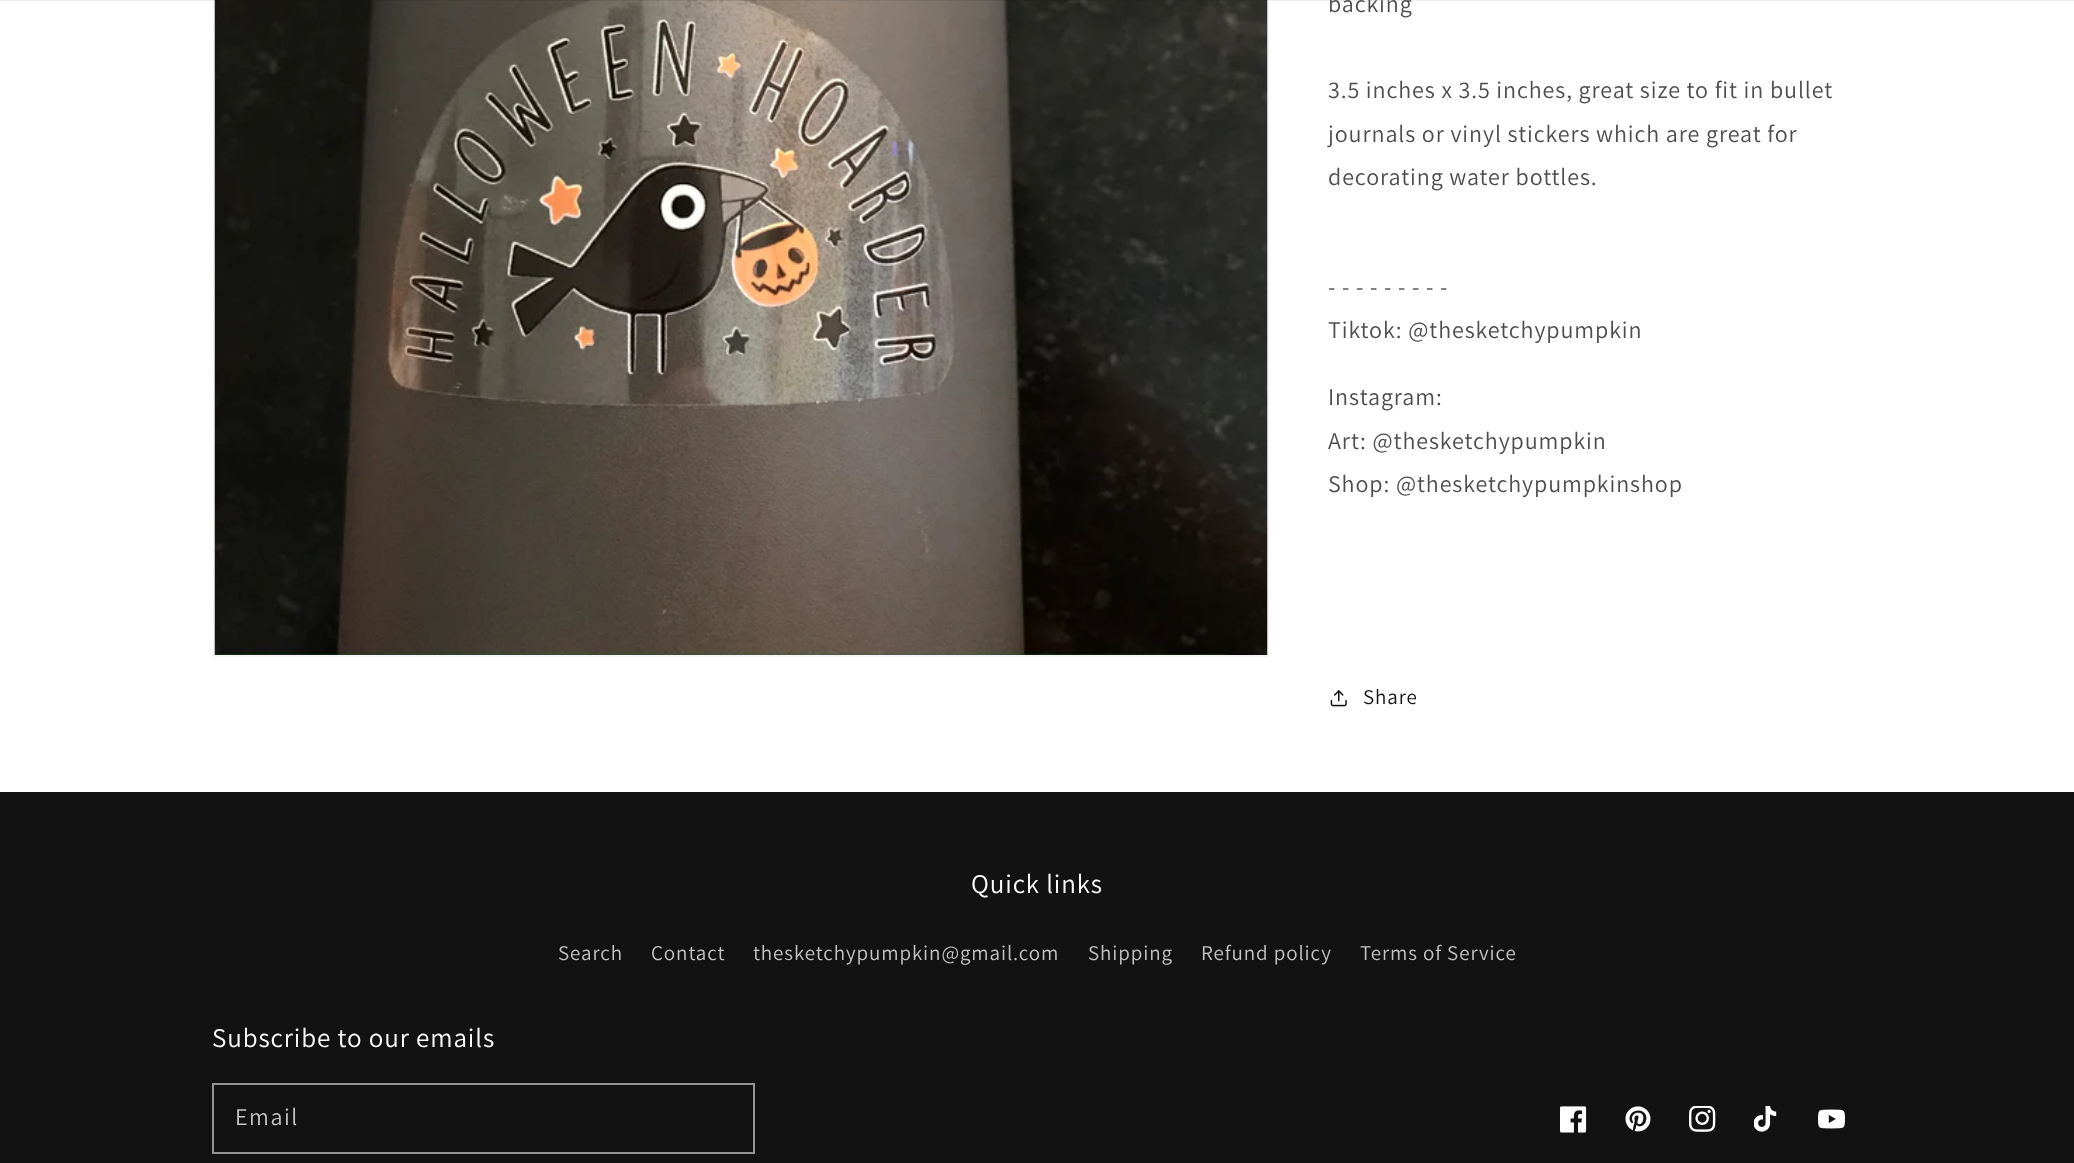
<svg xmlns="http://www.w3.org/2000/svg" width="2074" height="1163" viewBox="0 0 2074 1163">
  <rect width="100%" height="100%" fill="rgb(255,255,255)"/>
  <rect x="214" y="-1" width="1054" height="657" fill="none" stroke="rgb(246,246,246)" stroke-width="2"/>
  <image x="214" y="0" width="1054" height="655" href="pic1.png"/>
  <rect x="0" y="0" width="2074" height="1" fill="rgba(18,18,18,0.08)"/>
  <g font-family="Assistant" font-size="24" letter-spacing="0.9" fill="rgb(77,77,77)">
    <text x="1328" y="12">backing</text>
    <text>
      <tspan x="1328" y="98">3.5 inches x 3.5 inches, great size to fit in bullet</tspan>
      <tspan x="1328" y="142">journals or vinyl stickers which are great for</tspan>
      <tspan x="1328" y="185">decorating water bottles.</tspan>
    </text>
    <text>
      <tspan x="1328" y="295">- - - - - - - - -</tspan>
      <tspan x="1328" y="338">Tiktok: @thesketchypumpkin</tspan>
    </text>
    <text>
      <tspan x="1328" y="405">Instagram:</tspan>
      <tspan x="1328" y="449">Art: @thesketchypumpkin</tspan>
      <tspan x="1328" y="492">Shop: @thesketchypumpkinshop</tspan>
    </text>
  </g>
  <image x="1330" y="690" width="17" height="17" href="pic2.png"/>
  <text x="1363" y="704" font-family="Assistant" font-size="21" letter-spacing="0.9" fill="rgb(18,18,18)">Share</text>
  <rect x="0" y="792" width="2074" height="371" fill="rgb(18,18,18)"/>
  <text x="971" y="893" font-family="Assistant" font-size="27" letter-spacing="0.9" fill="rgb(255,255,255)">Quick links</text>
  <g font-family="Assistant" font-size="21" letter-spacing="0.9" fill="rgb(196,196,196)">
    <text x="558" y="960">Search</text>
    <text x="651" y="960">Contact</text>
    <text x="753" y="960">thesketchypumpkin@gmail.com</text>
    <text x="1088" y="960">Shipping</text>
    <text x="1201" y="960">Refund policy</text>
    <text x="1360" y="960">Terms of Service</text>
  </g>
  <text x="212" y="1047" font-family="Assistant" font-size="27" letter-spacing="0.9" fill="rgb(255,255,255)">Subscribe to our emails</text>
  <rect x="213" y="1084" width="541" height="69" fill="none" stroke="rgb(148,148,148)" stroke-width="2"/>
  <text x="235" y="1125" font-family="Assistant" font-size="24" letter-spacing="1.5" fill="rgb(196,196,196)">Email</text>
  <image x="1560" y="1106" width="27" height="27" href="pic3.png"/>
  <image x="1625" y="1106" width="26" height="26" href="pic4.png"/>
  <image x="1689" y="1106" width="27" height="26" href="pic5.png"/>
  <image x="1754" y="1106" width="23" height="26" href="pic6.png"/>
  <image x="1818" y="1109" width="27" height="20" href="pic7.png"/>
</svg>
